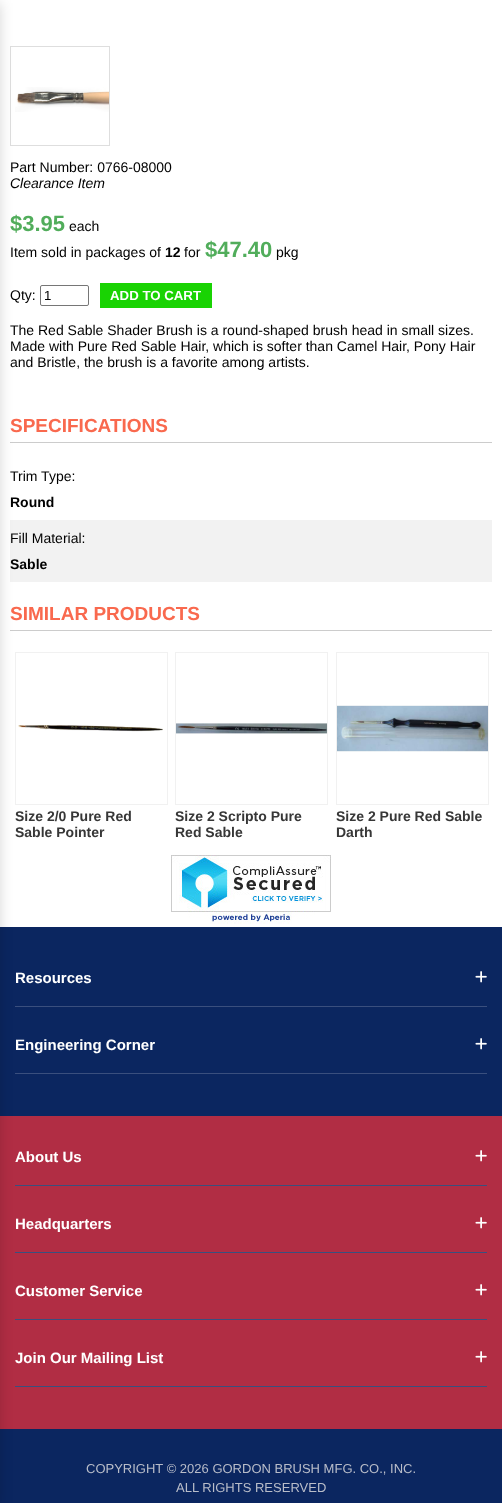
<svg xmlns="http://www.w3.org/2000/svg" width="502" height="1503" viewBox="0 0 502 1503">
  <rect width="100%" height="100%" fill="rgb(255,255,255)"/>
  <rect x="10.5" y="46.5" width="99" height="99" fill="none" stroke="rgb(222,222,222)"/>
  <image x="15" y="87" width="94" height="25" href="pic1.png"/>
  <rect x="10" y="442" width="482" height="1" fill="rgb(204,204,204)"/>
  <rect x="10" y="520" width="482" height="62" fill="rgb(242,242,242)"/>
  <rect x="10" y="630" width="482" height="1" fill="rgb(204,204,204)"/>
  <rect x="15.5" y="652.5" width="152" height="152" fill="none" stroke="rgb(241,241,241)"/>
  <image x="18" y="725" width="145" height="7" href="pic2.png"/>
  <rect x="0" y="927" width="502" height="189" fill="rgb(11,38,96)"/>
  <rect x="15" y="1006" width="472" height="1" fill="rgb(58,79,126)"/>
  <rect x="15" y="1073" width="472" height="1" fill="rgb(58,79,126)"/>
  <rect x="0" y="1116" width="502" height="313" fill="rgb(177,45,68)"/>
  <rect x="15" y="1185" width="472" height="1" fill="rgb(58,79,126)"/>
  <rect x="15" y="1252" width="472" height="1" fill="rgb(58,79,126)"/>
  <rect x="15" y="1319" width="472" height="1" fill="rgb(58,79,126)"/>
  <rect x="15" y="1386" width="472" height="1" fill="rgb(58,79,126)"/>
  <rect x="0" y="1429" width="502" height="74" fill="rgb(11,38,96)"/>
  <rect x="-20" y="3" width="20" height="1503" fill="rgba(0,0,0,0.16)" filter="blur(6.5px)"/>
  <text x="10" y="172" font-family="Liberation Sans" font-size="14" fill="rgb(0,0,0)">Part Number: 0766-08000</text>
  <text x="10" y="188" font-family="Liberation Sans" font-size="14" font-style="italic" fill="rgb(0,0,0)">Clearance Item</text>
  <text x="10" y="231" font-family="Liberation Sans" font-size="22" font-weight="bold" fill="rgb(81,173,91)">$3.95</text>
  <g font-family="Liberation Sans" font-size="14" fill="rgb(0,0,0)">
    <text x="69" y="231">each</text>
    <text x="10" y="257">Item sold in packages of</text>
  </g>
  <text x="165" y="257" font-family="Liberation Sans" font-size="14" font-weight="bold" fill="rgb(0,0,0)">12</text>
  <text x="184" y="257" font-family="Liberation Sans" font-size="14" fill="rgb(0,0,0)">for</text>
  <text x="205" y="257" font-family="Liberation Sans" font-size="22" font-weight="bold" fill="rgb(81,173,91)">$47.40</text>
  <g font-family="Liberation Sans" font-size="14" fill="rgb(0,0,0)">
    <text x="276" y="257">pkg</text>
    <text x="10" y="300">Qty:</text>
  </g>
  <rect x="40.5" y="285.5" width="48" height="20" rx="1.5" fill="none" stroke="rgb(118,118,118)"/>
  <text x="44" y="300" font-family="Liberation Sans" font-size="13.25" fill="rgb(0,0,0)">1</text>
  <rect x="100" y="283" width="112" height="25" fill="rgb(25,211,3)"/>
  <text x="110" y="300" font-family="Liberation Sans" font-size="13.25" font-weight="bold" fill="rgb(255,255,255)">ADD TO CART</text>
  <g font-family="Liberation Sans" font-size="14" fill="rgb(0,0,0)">
    <text>
      <tspan x="10" y="335">The Red Sable Shader Brush is a round-shaped brush head in small sizes.</tspan>
      <tspan x="10" y="351">Made with Pure Red Sable Hair, which is softer than Camel Hair, Pony Hair</tspan>
      <tspan x="10" y="367">and Bristle, the brush is a favorite among artists.</tspan>
    </text>
  </g>
  <text x="10" y="432" font-family="Liberation Sans" font-size="19" font-weight="bold" fill="rgb(249,105,78)">SPECIFICATIONS</text>
  <text x="10" y="481" font-family="Liberation Sans" font-size="14" fill="rgb(0,0,0)">Trim Type:</text>
  <text x="10" y="507" font-family="Liberation Sans" font-size="14" font-weight="bold" fill="rgb(0,0,0)">Round</text>
  <text x="10" y="543" font-family="Liberation Sans" font-size="14" fill="rgb(0,0,0)">Fill Material:</text>
  <text x="10" y="569" font-family="Liberation Sans" font-size="14" font-weight="bold" fill="rgb(0,0,0)">Sable</text>
  <text x="10" y="620" font-family="Liberation Sans" font-size="19" font-weight="bold" fill="rgb(249,105,78)">SIMILAR PRODUCTS</text>
  <g font-family="Liberation Sans" font-size="14" font-weight="bold" fill="rgb(55,55,55)">
    <text>
      <tspan x="15" y="821">Size 2/0 Pure Red</tspan>
      <tspan x="15" y="837">Sable Pointer</tspan>
    </text>
  </g>
  <rect x="175.5" y="652.5" width="152" height="152" fill="none" stroke="rgb(241,241,241)"/>
  <image x="176" y="723" width="151" height="11" href="pic3.png"/>
  <g font-family="Liberation Sans" font-size="14" font-weight="bold" fill="rgb(55,55,55)">
    <text>
      <tspan x="175" y="821">Size 2 Scripto Pure</tspan>
      <tspan x="175" y="837">Red Sable</tspan>
    </text>
  </g>
  <rect x="336.5" y="652.5" width="152" height="152" fill="none" stroke="rgb(241,241,241)"/>
  <image x="337" y="705" width="151" height="47" href="pic4.png"/>
  <g font-family="Liberation Sans" font-size="14" font-weight="bold" fill="rgb(55,55,55)">
    <text>
      <tspan x="336" y="821">Size 2 Pure Red Sable</tspan>
      <tspan x="336" y="837">Darth</tspan>
    </text>
  </g>
  <image x="171" y="855" width="160" height="69" href="pic5.png"/>
  <text x="15" y="983" font-family="Liberation Sans" font-size="15" font-weight="bold" fill="rgb(255,255,255)">Resources</text>
  <image x="475" y="971" width="12" height="12" href="pic6.png"/>
  <text x="15" y="1050" font-family="Liberation Sans" font-size="15" font-weight="bold" fill="rgb(255,255,255)">Engineering Corner</text>
  <image x="475" y="1038" width="12" height="12" href="pic6.png"/>
  <text x="15" y="1162" font-family="Liberation Sans" font-size="15" font-weight="bold" fill="rgb(255,255,255)">About Us</text>
  <image x="475" y="1150" width="12" height="12" href="pic7.png"/>
  <text x="15" y="1229" font-family="Liberation Sans" font-size="15" font-weight="bold" fill="rgb(255,255,255)">Headquarters</text>
  <image x="475" y="1217" width="12" height="12" href="pic7.png"/>
  <text x="15" y="1296" font-family="Liberation Sans" font-size="15" font-weight="bold" fill="rgb(255,255,255)">Customer Service</text>
  <image x="475" y="1284" width="12" height="12" href="pic7.png"/>
  <text x="15" y="1363" font-family="Liberation Sans" font-size="15" font-weight="bold" fill="rgb(255,255,255)">Join Our Mailing List</text>
  <image x="475" y="1351" width="12" height="12" href="pic7.png"/>
  <g font-family="Liberation Sans" font-size="13" fill="rgb(185,189,201)">
    <text x="86" y="1473">COPYRIGHT © 2026 GORDON BRUSH MFG. CO., INC.</text>
    <text x="176" y="1492">ALL RIGHTS RESERVED</text>
  </g>
</svg>
